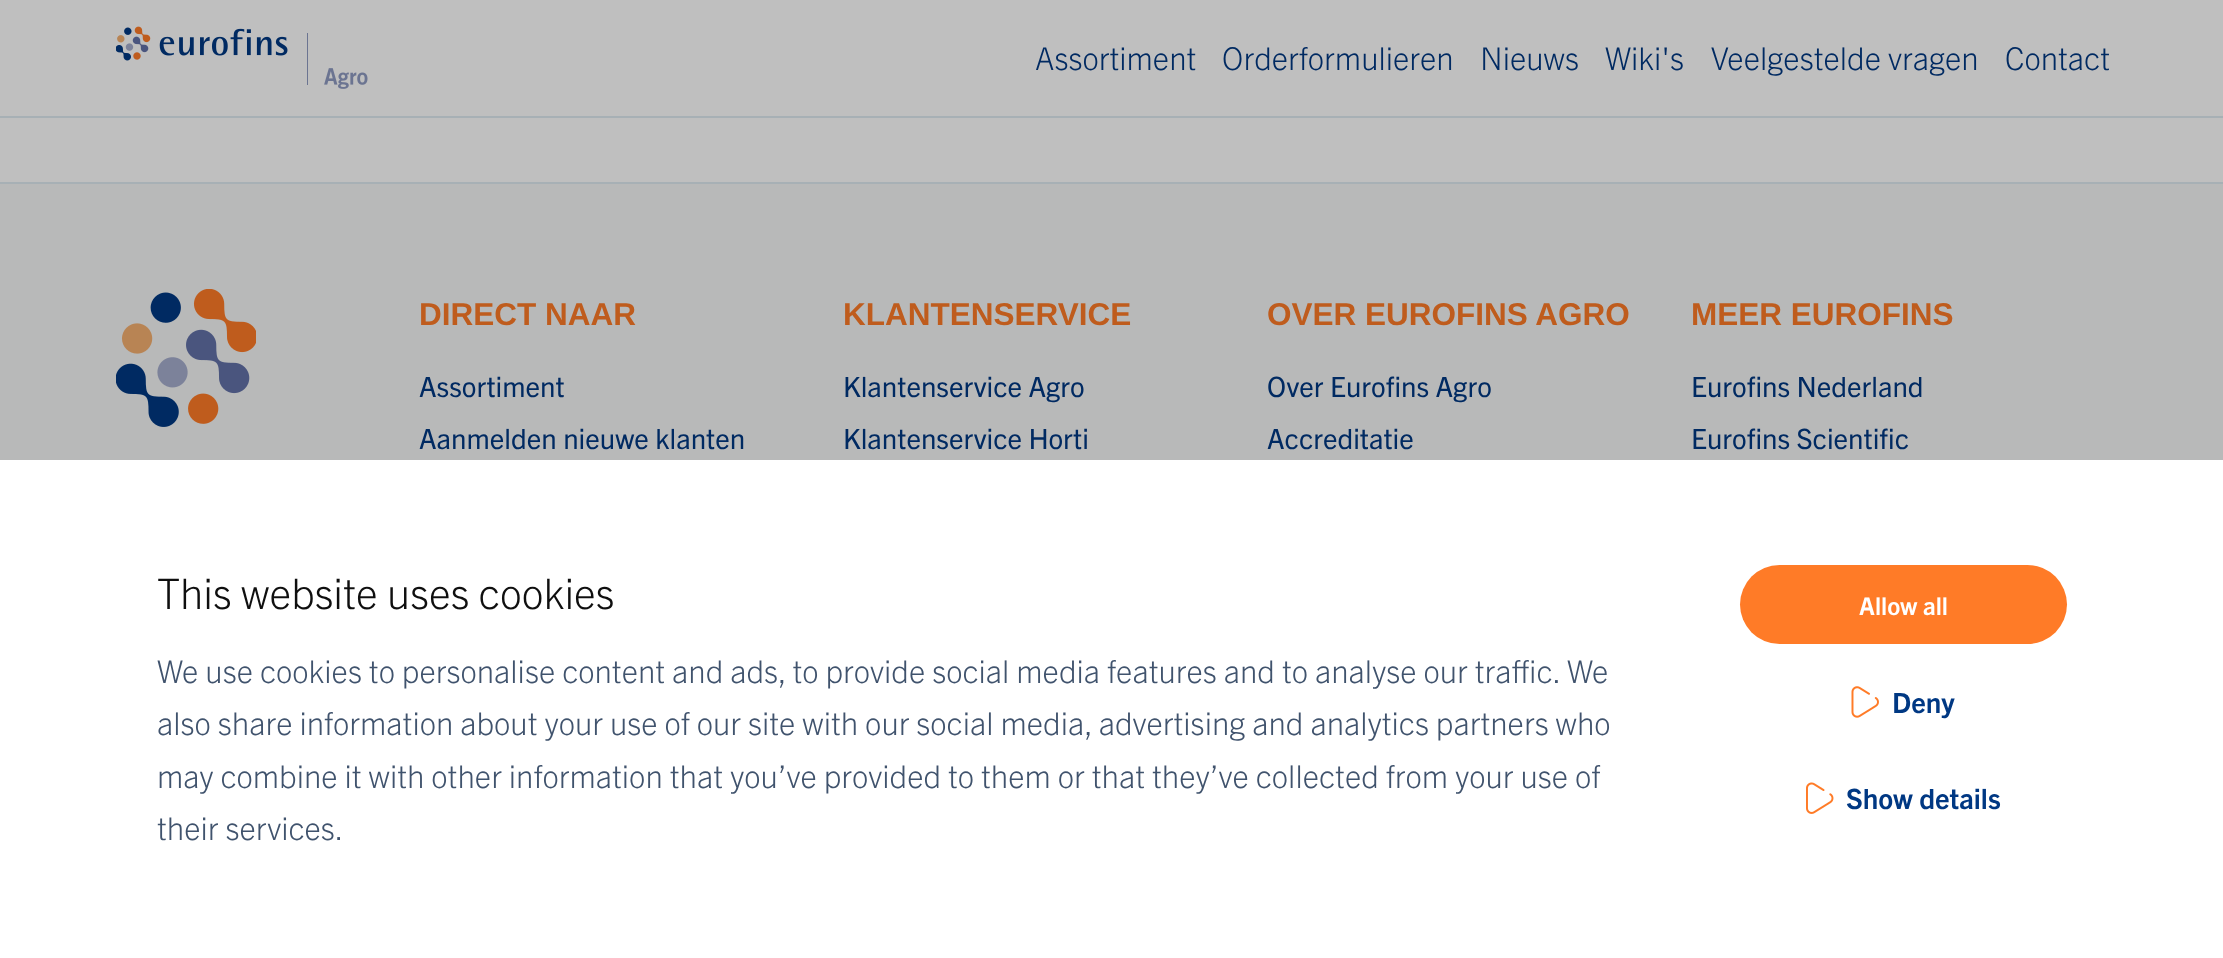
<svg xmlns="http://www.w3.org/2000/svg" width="2223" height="958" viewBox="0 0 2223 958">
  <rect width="100%" height="100%" fill="rgb(191,191,191)"/>
  <rect x="0" y="116" width="2223" height="2" fill="rgb(167,176,181)"/>
  <image x="116" y="26" width="252" height="63" href="pic1.png"/>
  <g font-family="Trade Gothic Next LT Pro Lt" font-size="31.5" font-weight="300" fill="rgb(0,42,98)">
    <text x="1035" y="70">Assortiment</text>
    <text x="1222" y="70">Orderformulieren</text>
    <text x="1480" y="70">Nieuws</text>
    <text x="1605" y="70">Wiki's</text>
    <text x="1711" y="70">Veelgestelde vragen</text>
    <text x="2005" y="70">Contact</text>
  </g>
  <rect x="0" y="184" width="2223" height="276" fill="rgb(184,185,185)"/>
  <rect x="0" y="182" width="2223" height="2" fill="rgb(167,176,181)"/>
  <image x="116" y="289" width="140" height="138" href="pic2.png"/>
  <text x="419" y="325" font-family="Liberation Sans" font-size="31.5" font-weight="bold" fill="rgb(191,92,29)">DIRECT NAAR</text>
  <g font-family="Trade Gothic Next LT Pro" font-size="28" fill="rgb(0,42,98)">
    <text>
      <tspan x="419" y="397">Assortiment</tspan>
      <tspan x="419" y="449">Aanmelden nieuwe klanten</tspan>
    </text>
  </g>
  <text x="843" y="325" font-family="Liberation Sans" font-size="31.5" font-weight="bold" fill="rgb(191,92,29)">KLANTENSERVICE</text>
  <g font-family="Trade Gothic Next LT Pro" font-size="28" fill="rgb(0,42,98)">
    <text>
      <tspan x="843" y="397">Klantenservice Agro</tspan>
      <tspan x="843" y="449">Klantenservice Horti</tspan>
    </text>
  </g>
  <text x="1267" y="325" font-family="Liberation Sans" font-size="31.5" font-weight="bold" fill="rgb(191,92,29)">OVER EUROFINS AGRO</text>
  <g font-family="Trade Gothic Next LT Pro" font-size="28" fill="rgb(0,42,98)">
    <text>
      <tspan x="1267" y="397">Over Eurofins Agro</tspan>
      <tspan x="1267" y="449">Accreditatie</tspan>
    </text>
  </g>
  <text x="1691" y="325" font-family="Liberation Sans" font-size="31.5" font-weight="bold" fill="rgb(191,92,29)">MEER EUROFINS</text>
  <g font-family="Trade Gothic Next LT Pro" font-size="28" fill="rgb(0,42,98)">
    <text>
      <tspan x="1691" y="397">Eurofins Nederland</tspan>
      <tspan x="1691" y="449">Eurofins Scientific</tspan>
    </text>
  </g>
  <rect x="0" y="460" width="2223" height="498" fill="rgb(255,255,255)"/>
  <text x="157" y="609" font-family="Trade Gothic Next LT Pro Lt" font-size="42" font-weight="300" fill="rgb(15,15,15)">This website uses cookies</text>
  <g font-family="Trade Gothic Next LT Pro Lt" font-size="31.5" font-weight="300" fill="rgb(64,83,109)">
    <text>
      <tspan x="157" y="683">We use cookies to personalise content and ads, to provide social media features and to analyse our traffic. We</tspan>
      <tspan x="157" y="735">also share information about your use of our site with our social media, advertising and analytics partners who</tspan>
      <tspan x="157" y="788">may combine it with other information that you’ve provided to them or that they’ve collected from your use of</tspan>
      <tspan x="157" y="840">their services.</tspan>
    </text>
  </g>
  <rect x="1740" y="565" width="327" height="79" rx="39.5" fill="rgb(255,123,39)"/>
  <text x="1859" y="615" font-family="Trade Gothic Next LT Pro" font-size="24.5" font-weight="bold" fill="rgb(255,255,255)">Allow all</text>
  <image x="1851" y="686" width="28" height="32" href="pic3.png"/>
  <text x="1892" y="713" font-family="Trade Gothic Next LT Pro" font-size="28" font-weight="bold" fill="rgb(0,56,131)">Deny</text>
  <image x="1806" y="782" width="28" height="32" href="pic4.png"/>
  <text x="1846" y="809" font-family="Trade Gothic Next LT Pro" font-size="28" font-weight="bold" fill="rgb(0,56,131)">Show details</text>
</svg>
